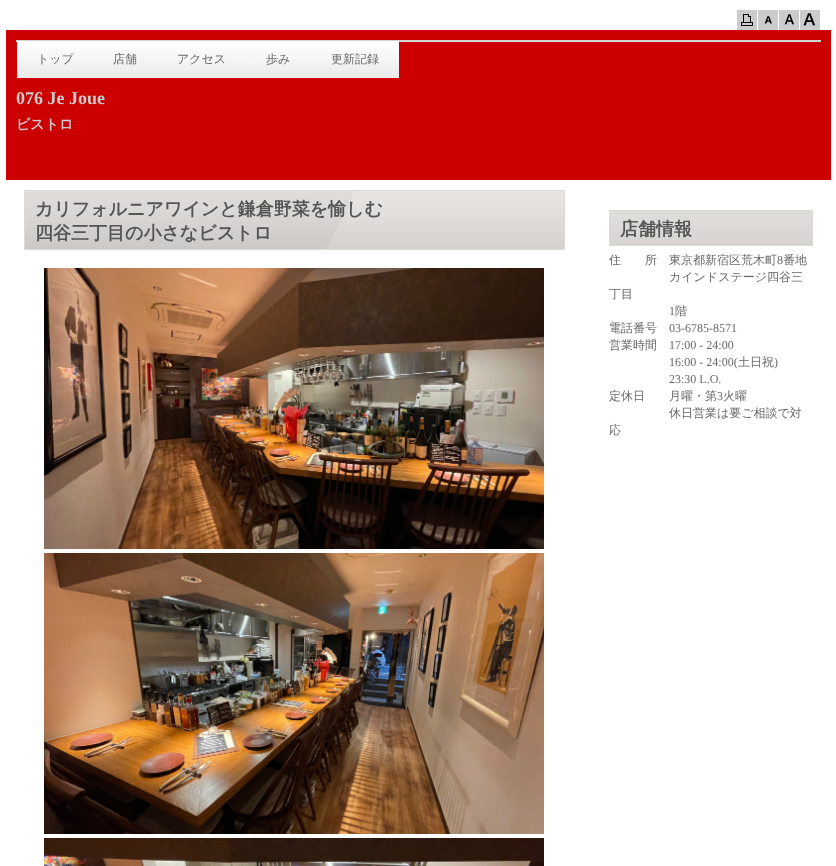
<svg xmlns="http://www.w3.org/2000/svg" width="836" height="866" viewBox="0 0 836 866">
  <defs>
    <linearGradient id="g1" gradientUnits="userSpaceOnUse" x1="55" y1="41" x2="55" y2="78"><stop offset="0" stop-color="rgb(255,255,255)"/><stop offset="0.98" stop-color="rgb(235,235,235)"/></linearGradient>
    <linearGradient id="g2" gradientUnits="userSpaceOnUse" x1="125" y1="41" x2="125" y2="78"><stop offset="0" stop-color="rgb(255,255,255)"/><stop offset="0.98" stop-color="rgb(235,235,235)"/></linearGradient>
    <linearGradient id="g3" gradientUnits="userSpaceOnUse" x1="202" y1="41" x2="202" y2="78"><stop offset="0" stop-color="rgb(255,255,255)"/><stop offset="0.98" stop-color="rgb(235,235,235)"/></linearGradient>
    <linearGradient id="g4" gradientUnits="userSpaceOnUse" x1="279" y1="41" x2="279" y2="78"><stop offset="0" stop-color="rgb(255,255,255)"/><stop offset="0.98" stop-color="rgb(235,235,235)"/></linearGradient>
    <linearGradient id="g5" gradientUnits="userSpaceOnUse" x1="355" y1="41" x2="355" y2="78"><stop offset="0" stop-color="rgb(255,255,255)"/><stop offset="0.98" stop-color="rgb(235,235,235)"/></linearGradient>
  </defs>
  <rect width="100%" height="100%" fill="rgb(255,255,255)"/>
  <rect x="737" y="10" width="20" height="20" fill="rgb(204,204,204)"/>
  <image x="741" y="14" width="12" height="12" href="pic1.png"/>
  <rect x="758" y="10" width="20" height="20" fill="rgb(204,204,204)"/>
  <image x="764" y="16" width="8" height="8" href="pic2.png"/>
  <rect x="779" y="10" width="20" height="20" fill="rgb(204,204,204)"/>
  <image x="784" y="14" width="10" height="11" href="pic3.png"/>
  <rect x="800" y="10" width="20" height="20" fill="rgb(204,204,204)"/>
  <image x="803" y="13" width="13" height="13" href="pic4.png"/>
  <rect x="6" y="30" width="825" height="150" fill="rgb(204,0,0)"/>
  <rect x="16" y="40" width="805" height="2" fill="rgb(211,211,211)"/>
  <rect x="17" y="41" width="76" height="37" fill="url(#g1)"/>
  <text x="37" y="63" font-family="WenQuanYi Zen Hei" font-size="12" font-weight="500" fill="rgb(105,105,105)">トップ</text>
  <rect x="93" y="41" width="64" height="37" fill="url(#g2)"/>
  <text x="113" y="63" font-family="WenQuanYi Zen Hei" font-size="12" font-weight="500" fill="rgb(105,105,105)">店舗</text>
  <rect x="157" y="41" width="89" height="37" fill="url(#g3)"/>
  <text x="177" y="63" font-family="WenQuanYi Zen Hei" font-size="12" font-weight="500" fill="rgb(105,105,105)">アクセス</text>
  <rect x="246" y="41" width="65" height="37" fill="url(#g4)"/>
  <text x="266" y="63" font-family="WenQuanYi Zen Hei" font-size="12" font-weight="500" fill="rgb(105,105,105)">歩み</text>
  <rect x="311" y="41" width="88" height="37" fill="url(#g5)"/>
  <text x="331" y="63" font-family="WenQuanYi Zen Hei" font-size="12" font-weight="500" fill="rgb(105,105,105)">更新記録</text>
  <text x="16" y="104" font-family="Liberation Serif" font-size="18" font-weight="bold" fill="rgb(204,204,204)">076 Je Joue</text>
  <text x="16" y="129" font-family="WenQuanYi Zen Hei" font-size="14" font-weight="bold" fill="rgb(204,204,204)">ビストロ</text>
  <image x="353" y="191" width="211" height="58" href="pic5.png"/>
  <rect x="24.5" y="190.5" width="540" height="59" fill="none" stroke="rgb(221,218,215)"/>
  <image x="25" y="191" width="328" height="58" href="pic6.png"/>
  <g font-family="WenQuanYi Zen Hei" font-size="18" font-weight="bold" fill="rgb(85,85,85)">
    <text>
      <tspan x="35" y="215">カリフォルニアワインと鎌倉野菜を愉しむ</tspan>
      <tspan x="35" y="239">四谷三丁目の小さなビストロ</tspan>
    </text>
  </g>
  <image x="44" y="268" width="500" height="281" href="pic7.png"/>
  <image x="44" y="553" width="500" height="281" href="pic8.png"/>
  <image x="44" y="838" width="500" height="28" href="pic9.png"/>
  <rect x="609.5" y="210.5" width="203" height="35" fill="none" stroke="rgb(221,218,215)"/>
  <image x="610" y="211" width="202" height="34" href="pic10.png"/>
  <text x="620" y="235" font-family="WenQuanYi Zen Hei" font-size="18" font-weight="bold" fill="rgb(85,85,85)">店舗情報</text>
  <text x="609" y="264" font-family="WenQuanYi Zen Hei" font-size="12" font-weight="500" fill="rgb(105,105,105)">住　　所　東京都新宿区荒木町</text>
  <text x="777" y="264" font-family="Liberation Serif" font-size="12" fill="rgb(105,105,105)">8</text>
  <g font-family="WenQuanYi Zen Hei" font-size="12" font-weight="500" fill="rgb(105,105,105)">
    <text x="783" y="264">番地</text>
    <text x="669" y="281">カインドステージ四谷三</text>
    <text x="609" y="298">丁目</text>
  </g>
  <text x="669" y="315" font-family="Liberation Serif" font-size="12" fill="rgb(105,105,105)">1</text>
  <g font-family="WenQuanYi Zen Hei" font-size="12" font-weight="500" fill="rgb(105,105,105)">
    <text x="675" y="315">階</text>
    <text x="609" y="332">電話番号</text>
  </g>
  <text x="669" y="332" font-family="Liberation Serif" font-size="12" fill="rgb(105,105,105)">03-6785-8571</text>
  <text x="609" y="349" font-family="WenQuanYi Zen Hei" font-size="12" font-weight="500" fill="rgb(105,105,105)">営業時間</text>
  <g font-family="Liberation Serif" font-size="12" fill="rgb(105,105,105)">
    <text>
      <tspan x="669" y="349">17:00 - 24:00</tspan>
      <tspan x="669" y="366">16:00 - 24:00(</tspan>
    </text>
  </g>
  <text x="738" y="366" font-family="WenQuanYi Zen Hei" font-size="12" font-weight="500" fill="rgb(105,105,105)">土日祝</text>
  <g font-family="Liberation Serif" font-size="12" fill="rgb(105,105,105)">
    <text x="774" y="366">)</text>
    <text x="669" y="383">23:30 L.O.</text>
  </g>
  <text x="609" y="400" font-family="WenQuanYi Zen Hei" font-size="12" font-weight="500" fill="rgb(105,105,105)">定休日　　月曜・第</text>
  <text x="717" y="400" font-family="Liberation Serif" font-size="12" fill="rgb(105,105,105)">3</text>
  <g font-family="WenQuanYi Zen Hei" font-size="12" font-weight="500" fill="rgb(105,105,105)">
    <text x="723" y="400">火曜</text>
    <text x="669" y="417">休日営業は要ご相談で対</text>
    <text x="609" y="434">応</text>
  </g>
</svg>
